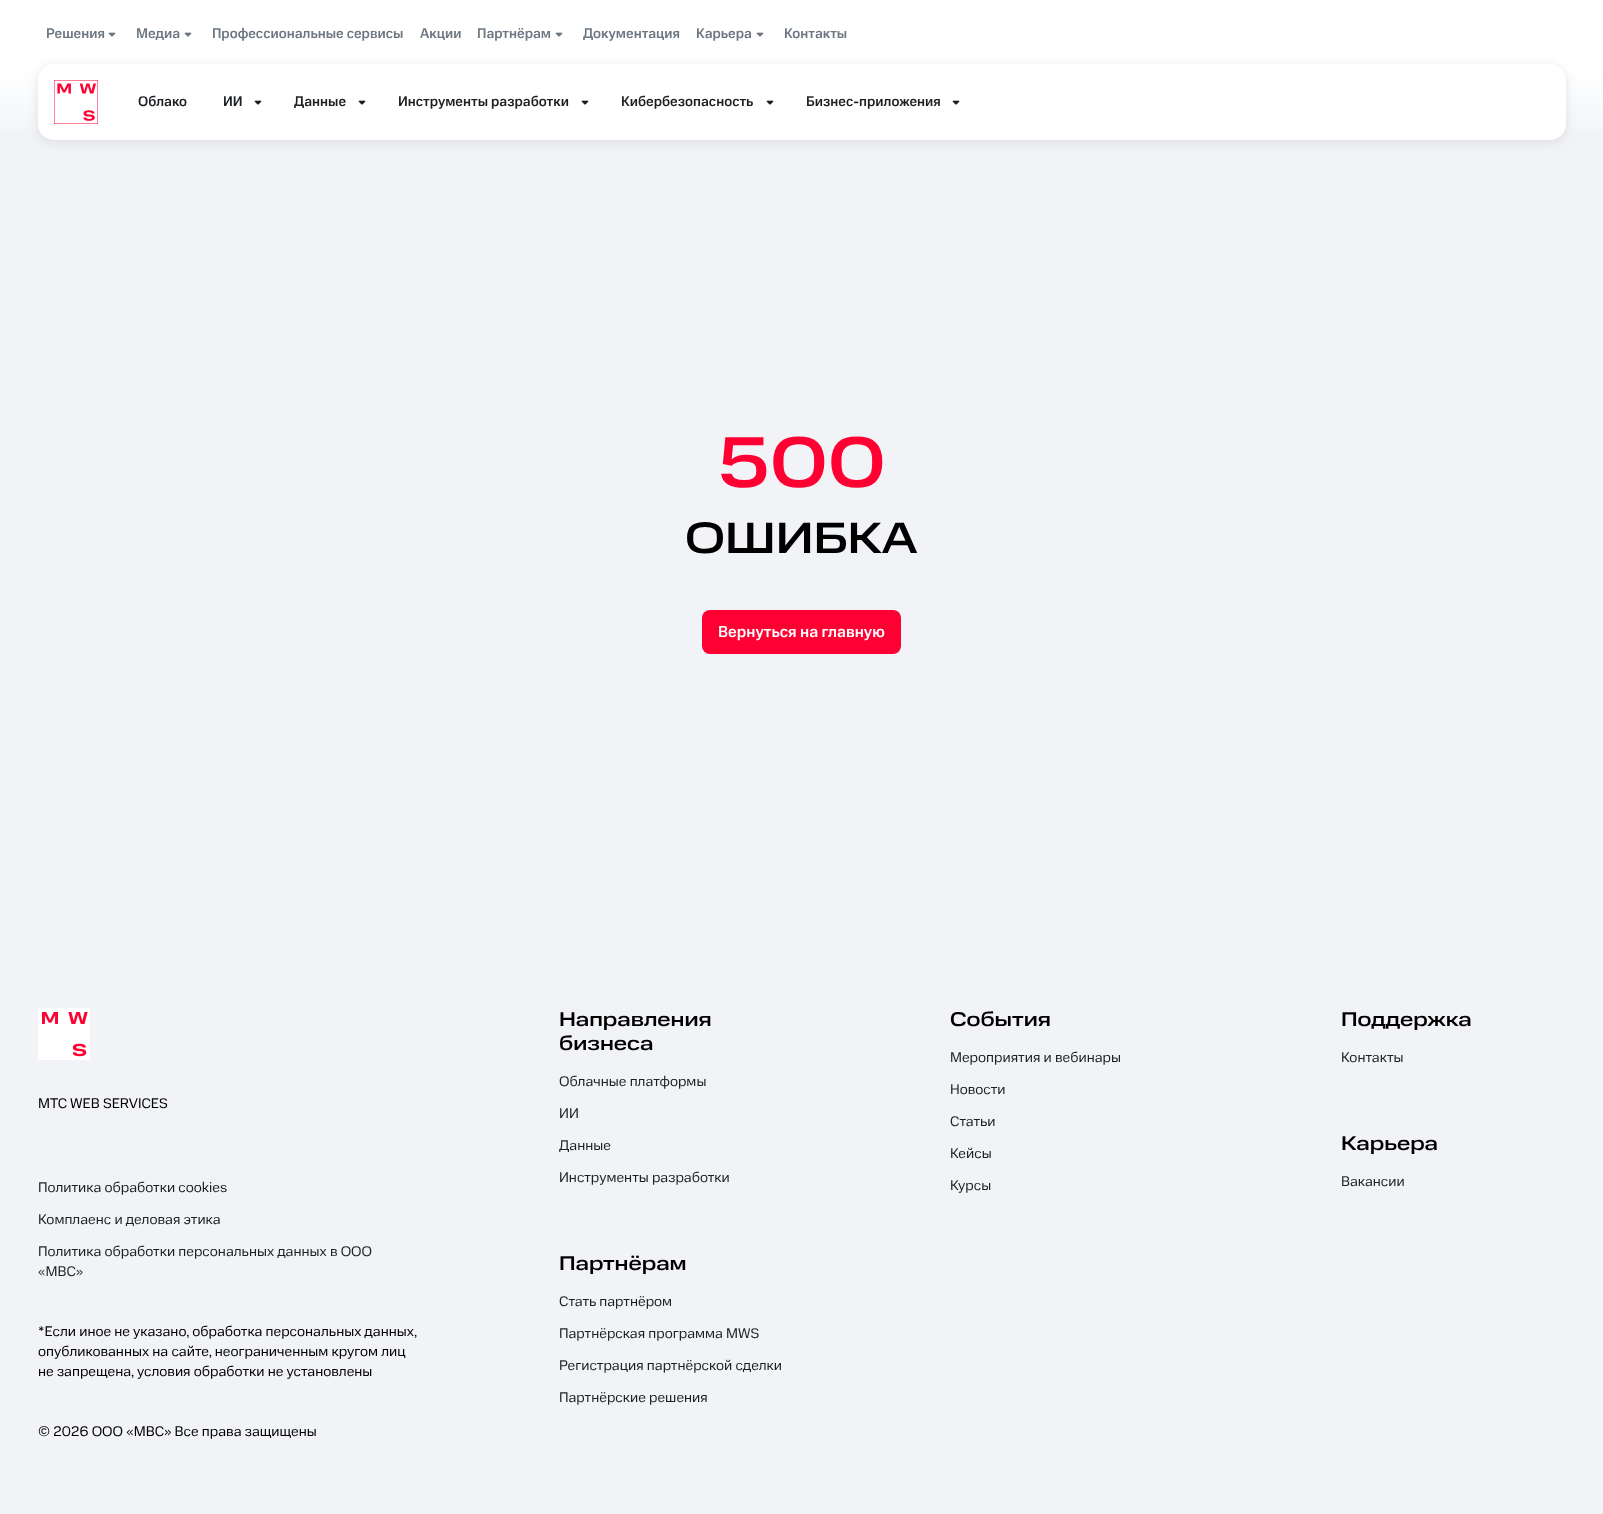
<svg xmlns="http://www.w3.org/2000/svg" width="1603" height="1514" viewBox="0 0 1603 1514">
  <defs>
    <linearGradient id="g1" gradientUnits="userSpaceOnUse" x1="802" y1="0" x2="802" y2="140"><stop offset="0" stop-color="rgb(255,255,255)"/><stop offset="0.5" stop-color="rgb(255,255,255)"/><stop offset="1" stop-color="rgb(241,244,248)"/></linearGradient>
  </defs>
  <rect width="100%" height="100%" fill="rgb(242,243,247)"/>
  <rect x="0" y="0" width="1603" height="130" fill="url(#g1)"/>
  <text x="46" y="38" font-family="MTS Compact" font-size="14" font-weight="500" fill="rgb(109,119,130)">Решения</text>
  <image x="108" y="32" width="8" height="5" href="pic1.png"/>
  <text x="136" y="38" font-family="MTS Compact" font-size="14" font-weight="500" fill="rgb(109,119,130)">Медиа</text>
  <image x="184" y="32" width="8" height="5" href="pic1.png"/>
  <g font-family="MTS Compact" font-size="14" font-weight="500" fill="rgb(109,119,130)">
    <text x="212" y="38">Профессиональные сервисы</text>
    <text x="420" y="38">Акции</text>
    <text x="477" y="38">Партнёрам</text>
  </g>
  <image x="555" y="32" width="8" height="5" href="pic1.png"/>
  <g font-family="MTS Compact" font-size="14" font-weight="500" fill="rgb(109,119,130)">
    <text x="583" y="38">Документация</text>
    <text x="696" y="38">Карьера</text>
  </g>
  <image x="756" y="32" width="8" height="5" href="pic1.png"/>
  <text x="784" y="38" font-family="MTS Compact" font-size="14" font-weight="500" fill="rgb(109,119,130)">Контакты</text>
  <rect x="38" y="64" width="1528" height="76" rx="16" fill="rgba(13,16,18,0.05)" filter="blur(4px)"/>
  <rect x="38" y="68" width="1528" height="76" rx="16" fill="rgba(13,16,18,0.05)" filter="blur(6px)"/>
  <rect x="38" y="64" width="1528" height="76" rx="16" fill="rgb(255,255,255)"/>
  <image x="54" y="80" width="44" height="44" href="pic2.png"/>
  <g font-family="MTS Compact" font-size="14" font-weight="500" fill="rgb(29,32,35)">
    <text x="138" y="106">Облако</text>
    <text x="223" y="106">ИИ</text>
  </g>
  <image x="254" y="100" width="8" height="5" href="pic3.png"/>
  <text x="294" y="106" font-family="MTS Compact" font-size="14" font-weight="500" fill="rgb(29,32,35)">Данные</text>
  <image x="358" y="100" width="8" height="5" href="pic3.png"/>
  <text x="398" y="106" font-family="MTS Compact" font-size="14" font-weight="500" fill="rgb(29,32,35)">Инструменты разработки</text>
  <image x="581" y="100" width="8" height="5" href="pic3.png"/>
  <text x="621" y="106" font-family="MTS Compact" font-size="14" font-weight="500" fill="rgb(29,32,35)">Кибербезопасность</text>
  <image x="766" y="100" width="8" height="5" href="pic3.png"/>
  <text x="806" y="106" font-family="MTS Compact" font-size="14" font-weight="500" fill="rgb(29,32,35)">Бизнес-приложения</text>
  <image x="952" y="100" width="8" height="5" href="pic3.png"/>
  <text x="718" y="487" font-family="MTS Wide" font-size="72" font-weight="500" fill="rgb(255,0,50)">500</text>
  <text x="685" y="553" font-family="MTS Wide" font-size="44" font-weight="500" fill="rgb(0,0,0)">ОШИБКА</text>
  <rect x="702" y="610" width="199" height="44" rx="8" fill="rgb(255,0,50)"/>
  <text x="718" y="637" font-family="MTS Compact" font-size="16" font-weight="500" fill="rgb(255,255,255)">Вернуться на главную</text>
  <image x="38" y="1008" width="52" height="52" href="pic4.png"/>
  <text x="38" y="1108" font-family="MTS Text" font-size="14" fill="rgb(0,0,0)">MTC WEB SERVICES</text>
  <g font-family="MTS Wide" font-size="20" font-weight="500" fill="rgb(0,0,0)">
    <text>
      <tspan x="559" y="1026">Направления</tspan>
      <tspan x="559" y="1050">бизнеса</tspan>
    </text>
  </g>
  <g font-family="MTS Text" font-size="14" fill="rgb(29,32,35)">
    <text x="559" y="1086">Облачные платформы</text>
    <text x="559" y="1118">ИИ</text>
    <text x="559" y="1150">Данные</text>
    <text x="559" y="1182">Инструменты разработки</text>
  </g>
  <text x="559" y="1270" font-family="MTS Wide" font-size="20" font-weight="500" fill="rgb(0,0,0)">Партнёрам</text>
  <g font-family="MTS Text" font-size="14" fill="rgb(29,32,35)">
    <text x="559" y="1306">Стать партнёром</text>
    <text x="559" y="1338">Партнёрская программа MWS</text>
    <text x="559" y="1370">Регистрация партнёрской сделки</text>
    <text x="559" y="1402">Партнёрские решения</text>
  </g>
  <text x="950" y="1026" font-family="MTS Wide" font-size="20" font-weight="500" fill="rgb(0,0,0)">События</text>
  <g font-family="MTS Text" font-size="14" fill="rgb(29,32,35)">
    <text x="950" y="1062">Мероприятия и вебинары</text>
    <text x="950" y="1094">Новости</text>
    <text x="950" y="1126">Статьи</text>
    <text x="950" y="1158">Кейсы</text>
    <text x="950" y="1190">Курсы</text>
  </g>
  <text x="1341" y="1026" font-family="MTS Wide" font-size="20" font-weight="500" fill="rgb(0,0,0)">Поддержка</text>
  <text x="1341" y="1062" font-family="MTS Text" font-size="14" fill="rgb(29,32,35)">Контакты</text>
  <text x="1341" y="1150" font-family="MTS Wide" font-size="20" font-weight="500" fill="rgb(0,0,0)">Карьера</text>
  <g font-family="MTS Text" font-size="14" fill="rgb(29,32,35)">
    <text x="1341" y="1186">Вакансии</text>
    <text x="38" y="1192">Политика обработки cookies</text>
    <text x="38" y="1224">Комплаенс и деловая этика</text>
    <text>
      <tspan x="38" y="1256">Политика обработки персональных данных в ООО</tspan>
      <tspan x="38" y="1276">«МВС»</tspan>
    </text>
  </g>
  <g font-family="MTS Text" font-size="14" fill="rgb(0,0,0)">
    <text>
      <tspan x="38" y="1336">*Если иное не указано, обработка персональных данных,</tspan>
      <tspan x="38" y="1356">опубликованных на сайте, неограниченным кругом лиц</tspan>
      <tspan x="38" y="1376">не запрещена, условия обработки не установлены</tspan>
    </text>
    <text x="38" y="1436">© 2026 ООО «МВС» Все права защищены</text>
  </g>
</svg>
